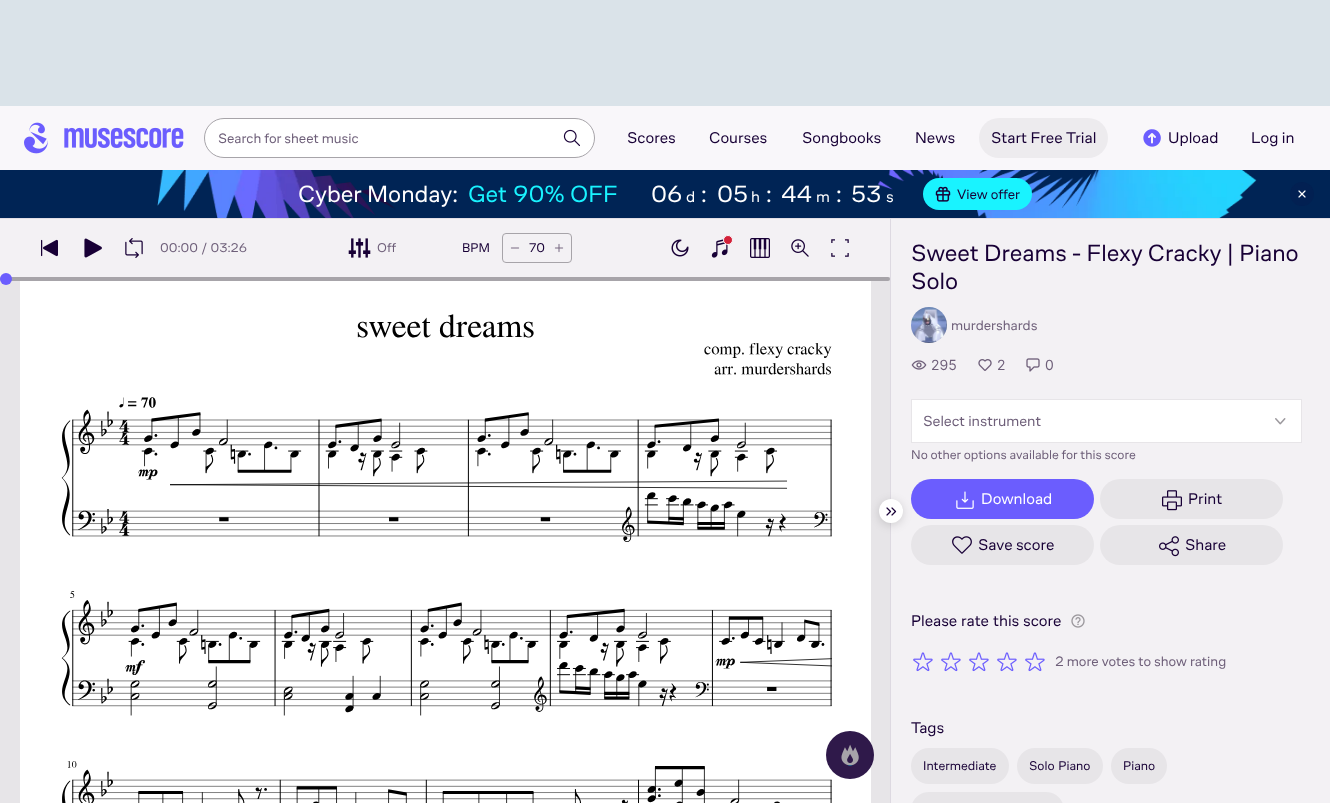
<svg xmlns="http://www.w3.org/2000/svg" width="1330" height="803" viewBox="0 0 1330 803">
  <rect width="100%" height="100%" fill="rgb(249,247,250)"/>
  <rect x="0" y="218" width="1330" height="1" fill="rgb(226,222,230)"/>
  <rect x="0" y="0" width="1330" height="106" fill="rgb(218,227,233)"/>
  <image x="24" y="122" width="160" height="32" href="pic1.png"/>
  <rect x="204.5" y="118.5" width="390" height="39" rx="19.5" fill="rgb(255,255,255)" stroke="rgb(167,164,169)"/>
  <text x="218" y="143" font-family="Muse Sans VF" font-size="14" fill="rgb(110,95,121)">Search for sheet music</text>
  <image x="563" y="129" width="17" height="18" href="pic2.png"/>
  <g font-family="Muse Sans VF" font-size="16" fill="rgb(24,0,54)">
    <text x="627" y="143">Scores</text>
    <text x="709" y="143">Courses</text>
    <text x="802" y="143">Songbooks</text>
    <text x="915" y="143">News</text>
  </g>
  <rect x="979" y="118" width="129" height="40" rx="20" fill="rgb(237,235,238)"/>
  <text x="991" y="143" font-family="Muse Sans VF" font-size="16" fill="rgb(24,0,54)">Start Free Trial</text>
  <image x="1143" y="129" width="18" height="18" href="pic3.png"/>
  <g font-family="Muse Sans VF" font-size="16" fill="rgb(24,0,54)">
    <text x="1168" y="143">Upload</text>
    <text x="1251" y="143">Log in</text>
  </g>
  <rect x="0" y="170" width="1330" height="48" fill="rgb(0,36,85)"/>
  <image x="157" y="170" width="1100" height="48" href="pic4.png"/>
  <g font-family="Muse Sans VF" font-size="24" fill="rgb(255,255,255)">
    <text x="298" y="202">Cyber</text>
    <text x="367" y="202">Monday:</text>
  </g>
  <g font-family="Muse Sans VF" font-size="24" fill="rgb(25,243,255)">
    <text x="468" y="202">Get</text>
    <text x="513" y="202">90%</text>
    <text x="570" y="202">OFF</text>
  </g>
  <text x="651" y="202" font-family="Muse Sans VF" font-size="24" fill="rgb(255,255,255)">06</text>
  <text x="686" y="202" font-family="Muse Sans VF" font-size="16" fill="rgb(255,255,255)">d</text>
  <g font-family="Muse Sans VF" font-size="24" fill="rgb(255,255,255)">
    <text x="701" y="202">:</text>
    <text x="717" y="202">05</text>
  </g>
  <text x="751" y="202" font-family="Muse Sans VF" font-size="16" fill="rgb(255,255,255)">h</text>
  <g font-family="Muse Sans VF" font-size="24" fill="rgb(255,255,255)">
    <text x="766" y="202">:</text>
    <text x="781" y="202">44</text>
  </g>
  <text x="816" y="202" font-family="Muse Sans VF" font-size="16" fill="rgb(255,255,255)">m</text>
  <g font-family="Muse Sans VF" font-size="24" fill="rgb(255,255,255)">
    <text x="836" y="202">:</text>
    <text x="851" y="202">53</text>
  </g>
  <text x="886" y="202" font-family="Muse Sans VF" font-size="16" fill="rgb(255,255,255)">s</text>
  <rect x="923" y="178" width="109" height="32" rx="16" fill="rgb(25,243,255)"/>
  <image x="935" y="186" width="16" height="16" href="pic5.png"/>
  <text x="957" y="199" font-family="Muse Sans VF" font-size="14" fill="rgb(24,0,54)">View offer</text>
  <circle cx="1302" cy="194" r="12" fill="rgb(2,32,82)"/>
  <image x="1298" y="190" width="8" height="8" href="pic6.png"/>
  <rect x="0" y="277" width="890" height="526" fill="rgb(231,229,232)"/>
  <rect x="0" y="277" width="890" height="4" rx="2" fill="rgb(167,164,169)"/>
  <rect x="0" y="219" width="890" height="58" fill="rgb(243,241,244)"/>
  <circle cx="6" cy="279" r="6" fill="rgb(107,93,254)"/>
  <image x="41" y="239" width="17" height="18" href="pic7.png"/>
  <image x="84" y="238" width="18" height="20" href="pic8.png"/>
  <image x="125" y="238" width="18" height="20" href="pic9.png"/>
  <text x="160" y="252" font-family="Muse Sans VF" font-size="13" fill="rgb(110,95,121)">00:00 / 03:26</text>
  <image x="348" y="238" width="23" height="20" href="pic10.png"/>
  <text x="377" y="252" font-family="Muse Sans VF" font-size="13" fill="rgb(110,95,121)">Off</text>
  <text x="462" y="252" font-family="Muse Sans VF" font-size="13" fill="rgb(24,0,54)">BPM</text>
  <rect x="502.5" y="233.5" width="69" height="29" rx="3.5" fill="none" stroke="rgb(167,164,169)"/>
  <image x="510" y="247" width="10" height="2" href="pic11.png"/>
  <text x="529" y="252" font-family="Muse Sans VF" font-size="13" fill="rgb(24,0,54)">70</text>
  <image x="554" y="243" width="10" height="10" href="pic12.png"/>
  <image x="671" y="239" width="18" height="18" href="pic13.png"/>
  <image x="711" y="239" width="17" height="19" href="pic14.png"/>
  <circle cx="728" cy="240" r="4.5" fill="rgb(211,33,57)" stroke="rgb(249,247,250)"/>
  <image x="750" y="238" width="20" height="20" href="pic15.png"/>
  <image x="791" y="239" width="18" height="18" href="pic16.png"/>
  <image x="831" y="239" width="18" height="18" href="pic17.png"/>
  <rect x="20" y="281" width="851" height="522" fill="rgb(255,255,255)"/>
  <image x="61" y="314" width="771" height="489" href="pic18.png"/>
  <circle cx="850" cy="755" r="24" fill="rgba(24,0,54,0.9)"/>
  <image x="841" y="744" width="18" height="22" href="pic19.png"/>
  <rect x="891" y="219" width="439" height="584" fill="rgb(243,241,244)"/>
  <rect x="890" y="219" width="1" height="584" fill="rgb(221,217,225)"/>
  <rect x="911" y="479" width="183" height="40" rx="20" fill="rgb(107,93,254)"/>
  <rect x="911" y="525" width="183" height="40" rx="20" fill="rgb(231,229,232)"/>
  <rect x="879" y="501" width="24" height="24" rx="12" fill="rgba(0,0,0,0.14)" filter="blur(5px)"/>
  <circle cx="891" cy="511" r="12" fill="rgb(255,255,255)"/>
  <image x="886" y="507" width="11" height="9" href="pic20.png"/>
  <g font-family="Muse Sans VF" font-size="24" fill="rgb(24,0,54)">
    <text>
      <tspan x="911" y="261">Sweet Dreams - Flexy Cracky | Piano</tspan>
      <tspan x="911" y="289">Solo</tspan>
    </text>
  </g>
  <image x="911" y="307" width="36" height="36" href="pic21.png"/>
  <text x="951" y="330" font-family="Muse Sans VF" font-size="14" fill="rgb(110,95,121)">murdershards</text>
  <image x="911" y="360" width="16" height="10" href="pic22.png"/>
  <text x="931" y="370" font-family="Inter" font-size="14" fill="rgb(110,95,121)">295</text>
  <image x="978" y="359" width="14" height="12" href="pic23.png"/>
  <text x="997" y="370" font-family="Inter" font-size="14" fill="rgb(110,95,121)">2</text>
  <image x="1026" y="358" width="14" height="14" href="pic24.png"/>
  <text x="1045" y="370" font-family="Inter" font-size="14" fill="rgb(110,95,121)">0</text>
  <rect x="911.5" y="399.5" width="390" height="43" fill="rgb(255,255,255)" stroke="rgb(231,229,232)"/>
  <text x="923" y="426" font-family="Muse Sans VF" font-size="15" fill="rgb(110,95,121)">Select instrument</text>
  <image x="1275" y="418" width="11" height="7" href="pic25.png"/>
  <text x="911" y="459" font-family="Muse Sans VF" font-size="13" fill="rgb(110,95,121)">No other options available for this score</text>
  <image x="956" y="491" width="18" height="18" href="pic26.png"/>
  <text x="981" y="504" font-family="Muse Sans VF" font-size="16" fill="rgb(255,255,255)">Download</text>
  <rect x="1100" y="479" width="183" height="40" rx="20" fill="rgb(231,229,232)"/>
  <image x="1162" y="490" width="20" height="21" href="pic27.png"/>
  <text x="1188" y="504" font-family="Muse Sans VF" font-size="16" fill="rgb(24,0,54)">Print</text>
  <image x="952" y="536" width="20" height="18" href="pic28.png"/>
  <text x="978" y="550" font-family="Muse Sans VF" font-size="16" fill="rgb(24,0,54)">Save score</text>
  <rect x="1100" y="525" width="183" height="40" rx="20" fill="rgb(231,229,232)"/>
  <image x="1159" y="536" width="20" height="21" href="pic29.png"/>
  <g font-family="Muse Sans VF" font-size="16" fill="rgb(24,0,54)">
    <text x="1185" y="550">Share</text>
    <text x="911" y="626">Please</text>
    <text x="961" y="626">rate</text>
    <text x="993" y="626">this</text>
    <text x="1023" y="626">score</text>
  </g>
  <image x="1071" y="614" width="14" height="14" href="pic30.png"/>
  <image x="913" y="652" width="20" height="20" href="pic31.png"/>
  <image x="941" y="652" width="20" height="20" href="pic31.png"/>
  <image x="969" y="652" width="20" height="20" href="pic31.png"/>
  <image x="997" y="652" width="20" height="20" href="pic31.png"/>
  <image x="1025" y="652" width="20" height="20" href="pic31.png"/>
  <text x="1055" y="666" font-family="Muse Sans VF" font-size="14" fill="rgb(110,95,121)">2 more votes to show rating</text>
  <text x="911" y="733" font-family="Muse Sans VF" font-size="16" fill="rgb(24,0,54)">Tags</text>
  <rect x="911" y="748" width="98" height="36" rx="18" fill="rgb(231,229,232)"/>
  <text x="923" y="770" font-family="Muse Sans VF" font-size="13" fill="rgb(24,0,54)">Intermediate</text>
  <rect x="1017" y="748" width="86" height="36" rx="18" fill="rgb(231,229,232)"/>
  <text x="1029" y="770" word-spacing="1" font-family="Muse Sans VF" font-size="13" fill="rgb(24,0,54)">Solo Piano</text>
  <rect x="1111" y="748" width="56" height="36" rx="18" fill="rgb(231,229,232)"/>
  <text x="1123" y="770" font-family="Muse Sans VF" font-size="13" fill="rgb(24,0,54)">Piano</text>
  <path d="M929 792H1046C1056 792 1064 800 1064 810V803H911V810C911 800 919 792 929 792Z" fill="rgb(231,229,232)"/>
</svg>
